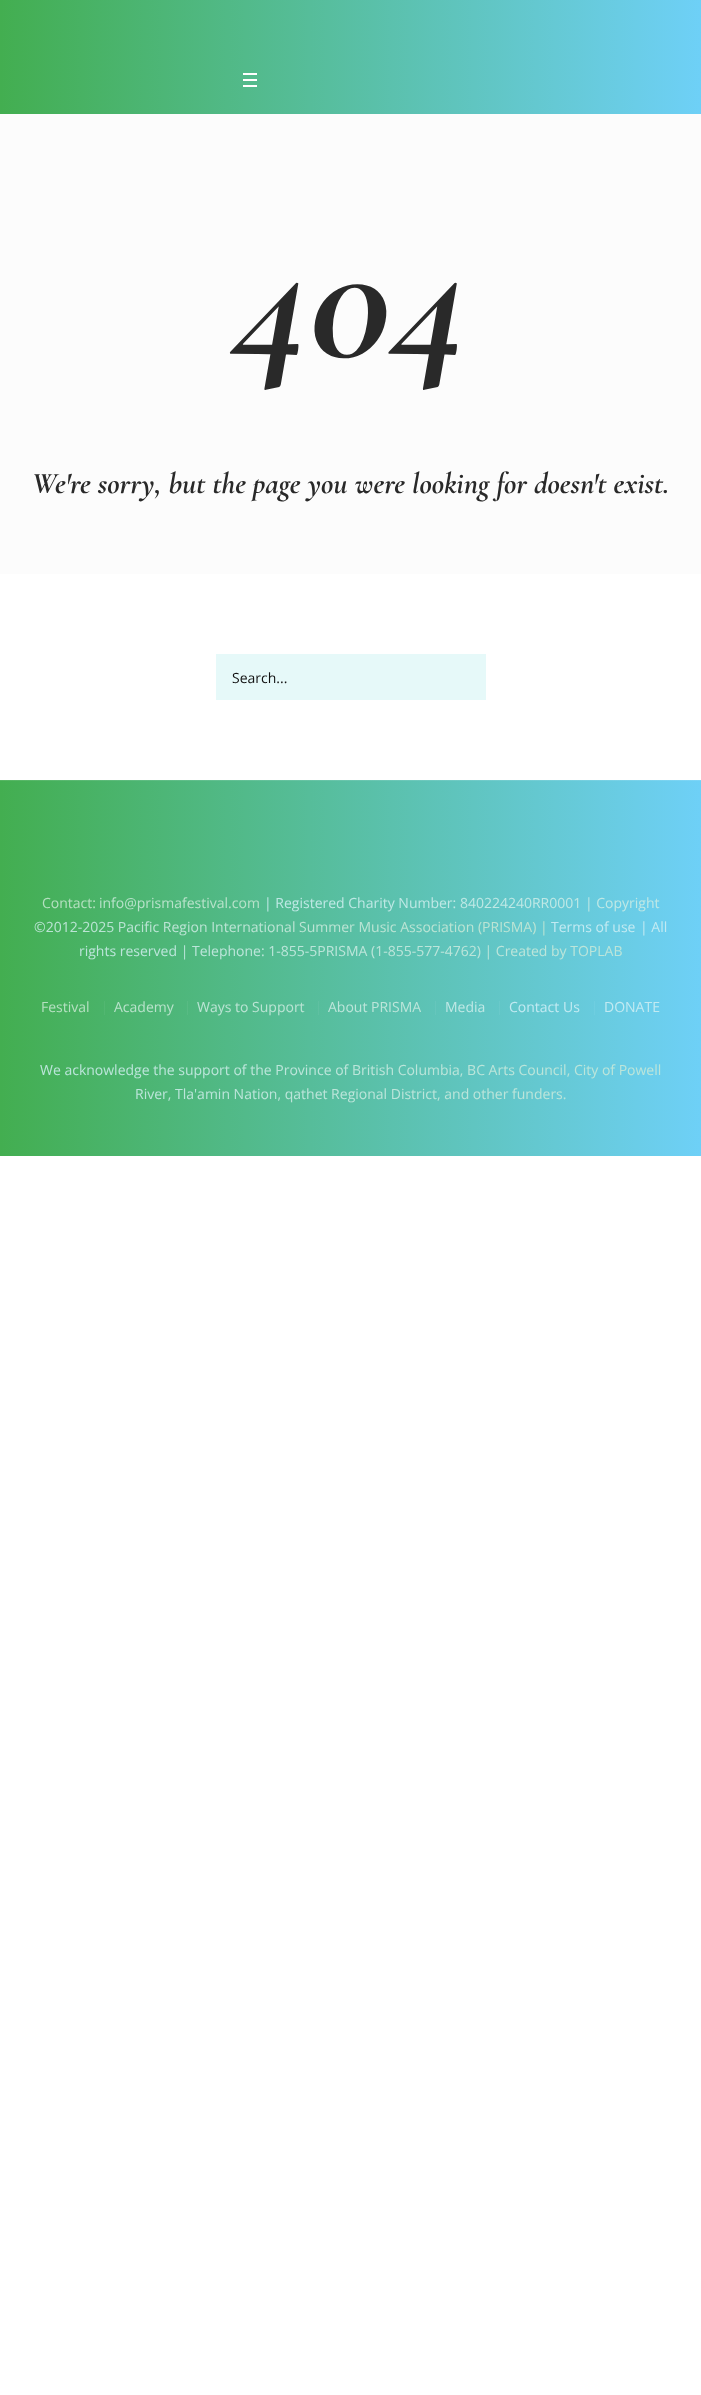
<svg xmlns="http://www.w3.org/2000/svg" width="701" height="2395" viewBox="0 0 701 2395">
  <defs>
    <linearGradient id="g1" gradientUnits="userSpaceOnUse" x1="0" y1="57" x2="701" y2="57"><stop offset="0" stop-color="rgb(67,174,80)"/><stop offset="1" stop-color="rgb(110,208,247)"/></linearGradient>
    <linearGradient id="g2" gradientUnits="userSpaceOnUse" x1="0" y1="969" x2="701" y2="969"><stop offset="0" stop-color="rgb(67,174,80)"/><stop offset="1" stop-color="rgb(110,208,247)"/></linearGradient>
    <linearGradient id="g3" gradientUnits="userSpaceOnUse" x1="0" y1="969" x2="701" y2="969"><stop offset="0" stop-color="rgb(86,182,98)"/><stop offset="1" stop-color="rgb(125,213,248)"/></linearGradient>
  </defs>
  <rect width="100%" height="100%" fill="rgb(255,255,255)"/>
  <rect x="0" y="0" width="701" height="114" fill="url(#g1)"/>
  <rect x="243" y="73" width="14" height="2" fill="rgb(255,255,255)"/>
  <rect x="243" y="79" width="14" height="2" fill="rgb(255,255,255)"/>
  <rect x="243" y="85" width="14" height="2" fill="rgb(255,255,255)"/>
  <rect x="0" y="114" width="701" height="460" fill="rgb(252,252,252)"/>
  <text x="232" y="356" font-family="Cormorant Garamond" font-size="180" font-weight="300" font-style="italic" fill="rgb(41,41,41)">404</text>
  <text x="32" y="493" font-family="Cormorant Garamond" font-size="30" font-weight="300" font-style="italic" fill="rgb(41,41,41)">We're sorry, but the page you were looking for doesn't exist.</text>
  <rect x="216" y="654" width="270" height="46" fill="rgb(230,249,249)"/>
  <text x="232" y="683" font-family="Open Sans" font-size="14" fill="rgb(17,17,17)">Search...</text>
  <rect x="0" y="781" width="701" height="375" fill="url(#g2)"/>
  <rect x="0" y="780" width="701" height="1" fill="url(#g3)"/>
  <text x="42" y="908" font-family="Open Sans" font-size="14" fill="rgb(181,224,192)">Contact:</text>
  <text x="99" y="908" font-family="Open Sans" font-size="14" fill="rgb(184,226,202)">info@prismafestival.com</text>
  <text x="264" y="908" font-family="Open Sans" font-size="14" fill="rgb(191,232,229)">| Registered Charity Number: 840224240RR0001 | Copyright</text>
  <text x="34" y="932" font-family="Open Sans" font-size="14" fill="rgb(187,228,212)">©2012-2025 Pacific Region International Summer Music Association (PRISMA) |</text>
  <g font-family="Open Sans" font-size="14" fill="rgb(194,234,242)">
    <text x="551" y="932">Terms of use</text>
    <text x="640" y="932">| All</text>
  </g>
  <text x="79" y="956" font-family="Open Sans" font-size="14" fill="rgb(188,229,218)">rights reserved | Telephone: 1-855-5PRISMA (1-855-577-4762) | Created by TOPLAB</text>
  <text x="41" y="1012" font-family="Open Sans" font-size="14" fill="rgb(181,224,192)">Festival</text>
  <rect x="104" y="1001" width="1" height="14" fill="rgb(82,183,113)"/>
  <text x="114" y="1012" font-family="Open Sans" font-size="14" fill="rgb(184,226,202)">Academy</text>
  <rect x="187" y="1001" width="1" height="14" fill="rgb(88,187,132)"/>
  <text x="197" y="1012" font-family="Open Sans" font-size="14" fill="rgb(187,228,212)">Ways to Support</text>
  <rect x="318" y="1001" width="1" height="14" fill="rgb(95,192,161)"/>
  <text x="328" y="1012" font-family="Open Sans" font-size="14" fill="rgb(188,229,218)">About PRISMA</text>
  <rect x="435" y="1001" width="1" height="14" fill="rgb(102,198,188)"/>
  <text x="445" y="1012" font-family="Open Sans" font-size="14" fill="rgb(191,232,229)">Media</text>
  <rect x="499" y="1001" width="1" height="14" fill="rgb(106,201,202)"/>
  <text x="509" y="1012" font-family="Open Sans" font-size="14" fill="rgb(194,234,242)">Contact Us</text>
  <rect x="594" y="1001" width="1" height="14" fill="rgb(111,206,224)"/>
  <text x="604" y="1012" font-family="Open Sans" font-size="14" fill="rgb(194,234,242)">DONATE</text>
  <g font-family="Open Sans" font-size="14" fill="rgb(188,229,218)">
    <text x="40" y="1075">We acknowledge the support of the Province of British Columbia, BC Arts Council, City of Powell</text>
    <text x="135" y="1099">River, Tla'amin Nation, qathet Regional District, and other funders.</text>
  </g>
</svg>
